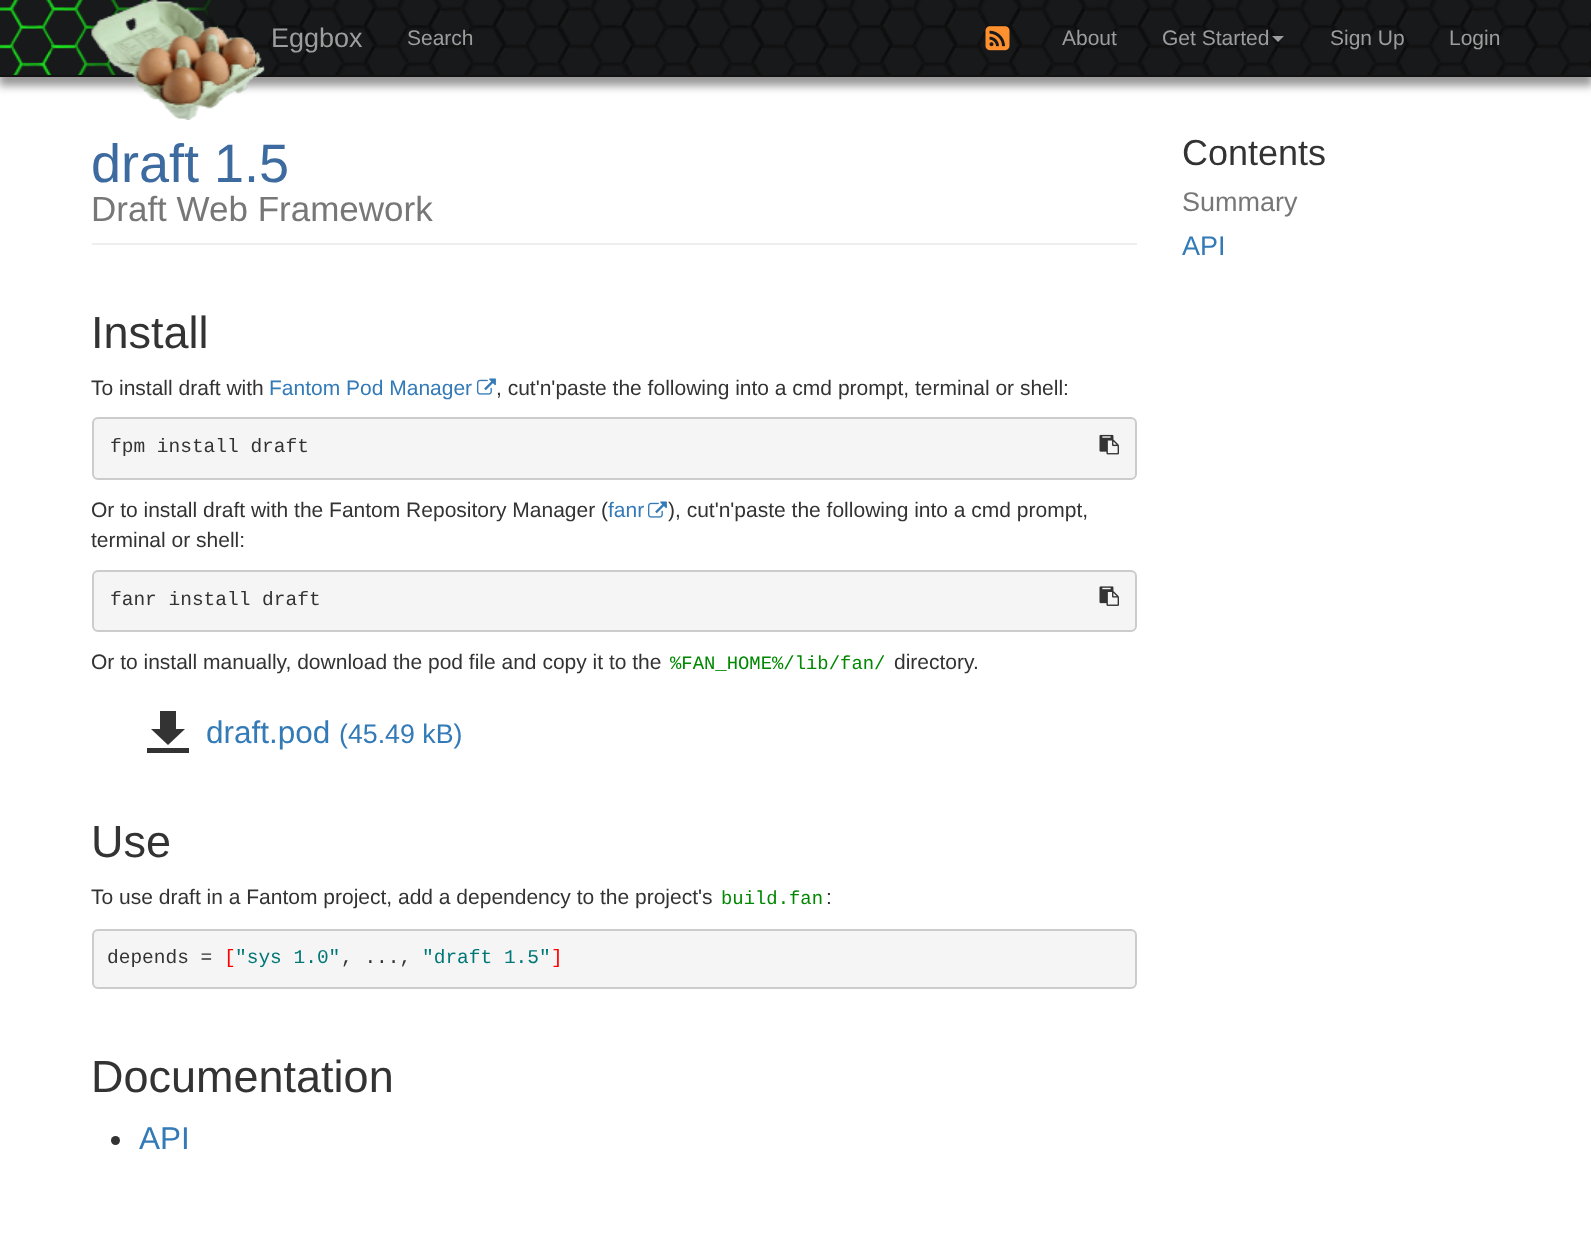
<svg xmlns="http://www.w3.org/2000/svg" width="1591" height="1236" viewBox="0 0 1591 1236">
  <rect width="100%" height="100%" fill="rgb(255,255,255)"/>
  <rect x="-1" y="6" width="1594" height="80" fill="rgba(0,0,0,0.4)" filter="blur(4px)"/>
  <rect x="0" y="0" width="1591" height="77" fill="rgb(19,19,19)"/>
  <rect x="0" y="0" width="188" height="75" fill="rgb(32,238,35)"/>
  <image x="0" y="0" width="188" height="75" href="pic1.png"/>
  <rect x="188" y="0" width="30" height="29" fill="rgb(32,238,35)"/>
  <image x="188" y="0" width="30" height="37" href="pic2.png"/>
  <image x="0" y="0" width="1591" height="75" href="pic3.png"/>
  <image x="91" y="0" width="174" height="120" href="pic4.png"/>
  <text x="271" y="47" font-family="Liberation Sans" font-size="27" fill="rgb(157,157,157)">Eggbox</text>
  <text x="407" y="45" font-family="Liberation Sans" font-size="21" fill="rgb(157,157,157)">Search</text>
  <image x="985" y="26" width="25" height="25" href="pic5.png"/>
  <g font-family="Liberation Sans" font-size="21" fill="rgb(157,157,157)">
    <text x="1062" y="45">About</text>
    <text x="1162" y="45">Get Started</text>
  </g>
  <path d="M1272 36H1284L1278 42Z" fill="rgb(157,157,157)"/>
  <g font-family="Liberation Sans" font-size="21" fill="rgb(157,157,157)">
    <text x="1330" y="45">Sign Up</text>
    <text x="1449" y="45">Login</text>
  </g>
  <rect x="92" y="243" width="1045" height="2" fill="rgb(238,238,238)"/>
  <text x="91" y="182" font-family="Liberation Sans" font-size="54" fill="rgb(61,107,160)">draft 1.5</text>
  <text x="91" y="221" font-family="Liberation Sans" font-size="35" fill="rgb(119,119,119)">Draft Web Framework</text>
  <text x="91" y="348" font-family="Liberation Sans" font-size="45" fill="rgb(51,51,51)">Install</text>
  <text x="91" y="395" font-family="Liberation Sans" font-size="21" fill="rgb(51,51,51)">To install draft with</text>
  <text x="269" y="395" font-family="Liberation Sans" font-size="21" fill="rgb(51,122,183)">Fantom Pod Manager</text>
  <image x="477" y="378" width="19" height="17" href="pic6.png"/>
  <text x="496" y="395" font-family="Liberation Sans" font-size="21" fill="rgb(51,51,51)">, cut'n'paste the following into a cmd prompt, terminal or shell:</text>
  <rect x="93" y="418" width="1043" height="61" rx="5" fill="rgb(245,245,245)" stroke="rgb(204,204,204)" stroke-width="2"/>
  <text x="110" y="452" font-family="Liberation Mono" font-size="19.5" fill="rgb(51,51,51)">fpm install draft</text>
  <image x="1099" y="434" width="20" height="21" href="pic7.png"/>
  <text x="91" y="517" font-family="Liberation Sans" font-size="21" fill="rgb(51,51,51)">Or to install draft with the Fantom Repository Manager (</text>
  <text x="608" y="517" font-family="Liberation Sans" font-size="21" fill="rgb(51,122,183)">fanr</text>
  <image x="648" y="501" width="19" height="17" href="pic6.png"/>
  <g font-family="Liberation Sans" font-size="21" fill="rgb(51,51,51)">
    <text x="668" y="517">), cut'n'paste the following into a cmd prompt,</text>
    <text x="91" y="547">terminal or shell:</text>
  </g>
  <rect x="93" y="571" width="1043" height="60" rx="5" fill="rgb(245,245,245)" stroke="rgb(204,204,204)" stroke-width="2"/>
  <text x="110" y="605" font-family="Liberation Mono" font-size="19.5" fill="rgb(51,51,51)">fanr install draft</text>
  <image x="1099" y="586" width="20" height="20" href="pic8.png"/>
  <text x="91" y="669" font-family="Liberation Sans" font-size="21" fill="rgb(51,51,51)">Or to install manually, download the pod file and copy it to the</text>
  <text x="670" y="669" font-family="Liberation Mono" font-size="18.9" fill="rgb(0,136,0)">%FAN_HOME%/lib/fan/</text>
  <text x="894" y="669" font-family="Liberation Sans" font-size="21" fill="rgb(51,51,51)">directory.</text>
  <path d="M147 753V748H189V753ZM151 729H160V711H176V729H185L168 745Z" fill="rgb(51,51,51)"/>
  <text x="206" y="743" font-family="Liberation Sans" font-size="31.5" fill="rgb(51,122,183)">draft.pod</text>
  <text x="339" y="743" font-family="Liberation Sans" font-size="26.75" fill="rgb(51,122,183)">(45.49 kB)</text>
  <text x="91" y="857" font-family="Liberation Sans" font-size="45" fill="rgb(51,51,51)">Use</text>
  <text x="91" y="904" font-family="Liberation Sans" font-size="21" fill="rgb(51,51,51)">To use draft in a Fantom project, add a dependency to the project's</text>
  <text x="721" y="904" font-family="Liberation Mono" font-size="18.9" fill="rgb(0,136,0)">build.fan</text>
  <text x="826" y="904" font-family="Liberation Sans" font-size="21" fill="rgb(51,51,51)">:</text>
  <rect x="93" y="930" width="1043" height="58" rx="5" fill="rgb(245,245,245)" stroke="rgb(204,204,204)" stroke-width="2"/>
  <text x="107" y="963" font-family="Liberation Mono" font-size="19.5" fill="rgb(51,51,51)">depends =</text>
  <text x="224" y="963" font-family="Liberation Mono" font-size="19.5" fill="rgb(255,0,0)">[</text>
  <text x="235" y="963" font-family="Liberation Mono" font-size="19.5" fill="rgb(0,119,119)">"sys 1.0"</text>
  <text x="341" y="963" font-family="Liberation Mono" font-size="19.5" fill="rgb(51,51,51)">, ...,</text>
  <text x="422" y="963" font-family="Liberation Mono" font-size="19.5" fill="rgb(0,119,119)">"draft 1.5"</text>
  <text x="551" y="963" font-family="Liberation Mono" font-size="19.5" fill="rgb(255,0,0)">]</text>
  <text x="91" y="1092" font-family="Liberation Sans" font-size="45" fill="rgb(51,51,51)">Documentation</text>
  <circle cx="115.5" cy="1140.5" r="4.5" fill="rgb(51,51,51)"/>
  <text x="139" y="1149" font-family="Liberation Sans" font-size="31.5" fill="rgb(51,122,183)">API</text>
  <text x="1182" y="165" font-family="Liberation Sans" font-size="36" fill="rgb(51,51,51)">Contents</text>
  <text x="1182" y="211" font-family="Liberation Sans" font-size="27" fill="rgb(119,119,119)">Summary</text>
  <text x="1182" y="255" font-family="Liberation Sans" font-size="27" fill="rgb(51,122,183)">API</text>
</svg>
